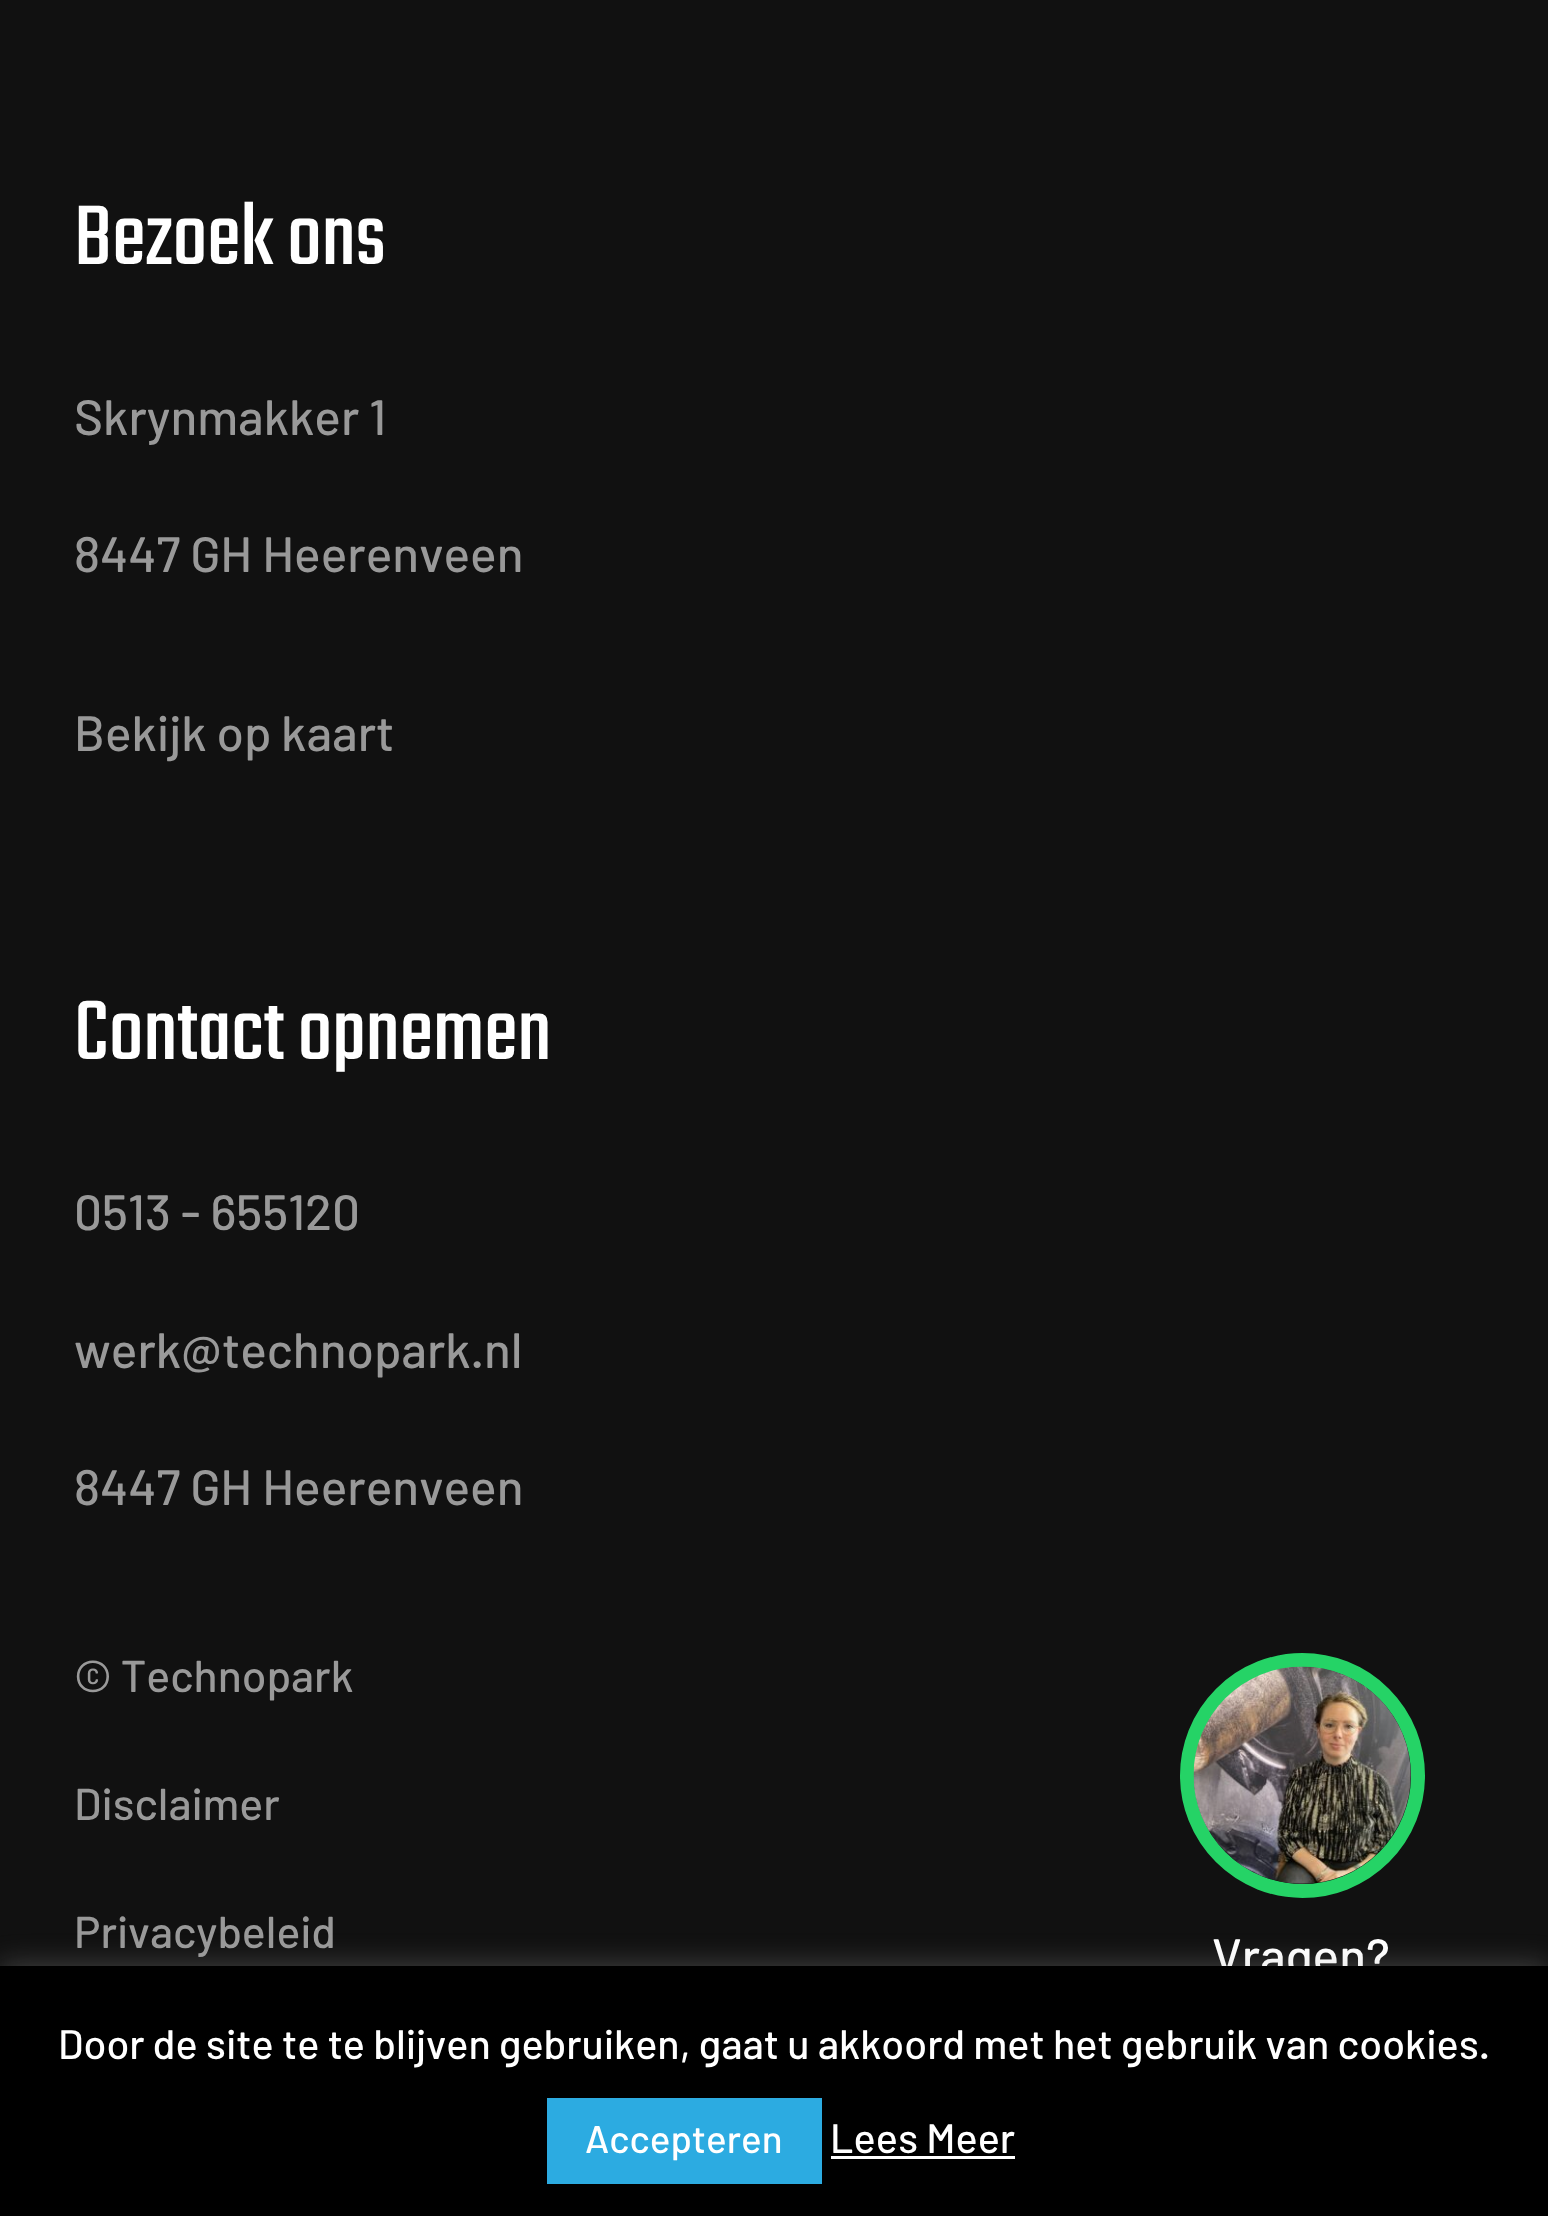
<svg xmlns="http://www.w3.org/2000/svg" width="1548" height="2216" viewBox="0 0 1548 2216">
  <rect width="100%" height="100%" fill="rgb(17,17,17)"/>
  <text x="74" y="264" font-family="Teko" font-size="93" fill="rgb(255,255,255)">Bezoek ons</text>
  <g font-family="Barlow" font-size="49.5" font-weight="500" fill="rgb(153,153,153)">
    <text x="74" y="435">Skrynmakker 1</text>
    <text x="74" y="572">8447 GH Heerenveen</text>
    <text x="74" y="751">Bekijk op kaart</text>
  </g>
  <text x="74" y="1059" font-family="Teko" font-size="93" fill="rgb(255,255,255)">Contact opnemen</text>
  <g font-family="Barlow" font-size="49.5" font-weight="500" fill="rgb(153,153,153)">
    <text x="74" y="1230">0513 - 655120</text>
    <text x="74" y="1368">werk@technopark.nl</text>
    <text x="74" y="1505">8447 GH Heerenveen</text>
  </g>
  <g font-family="Barlow" font-size="44.5" font-weight="500" fill="rgb(153,153,153)">
    <text x="74" y="1692">© Technopark</text>
    <text x="74" y="1820">Disclaimer</text>
    <text x="74" y="1948">Privacybeleid</text>
  </g>
  <circle cx="1302.5" cy="1775.5" r="115.5" fill="none" stroke="rgb(37,211,102)" stroke-width="14"/>
  <image x="1193" y="1666" width="218" height="218" href="pic1.png"/>
  <text x="1212" y="1974" font-family="Barlow" font-size="49.5" font-weight="500" fill="rgb(255,255,255)">Vragen?</text>
  <rect x="0" y="1964" width="1548" height="250" fill="rgba(172,171,171,0.3)" filter="blur(14px)"/>
  <rect x="0" y="1966" width="1548" height="250" fill="rgb(0,0,0)"/>
  <text x="58" y="2059" font-family="Barlow" font-size="41.25" font-weight="500" fill="rgb(255,255,255)">Door de site te te blijven gebruiken, gaat u akkoord met het gebruik van cookies.</text>
  <rect x="547" y="2098" width="275" height="86" fill="rgb(44,171,225)"/>
  <text x="585" y="2153" font-family="Barlow" font-size="38.5" font-weight="500" fill="rgb(255,255,255)">Accepteren</text>
  <text x="830" y="2153" font-family="Barlow" font-size="41.25" font-weight="500" fill="rgb(255,255,255)">Lees Meer</text>
  <rect x="831" y="2156" width="184" height="3" fill="rgb(255,255,255)"/>
</svg>
